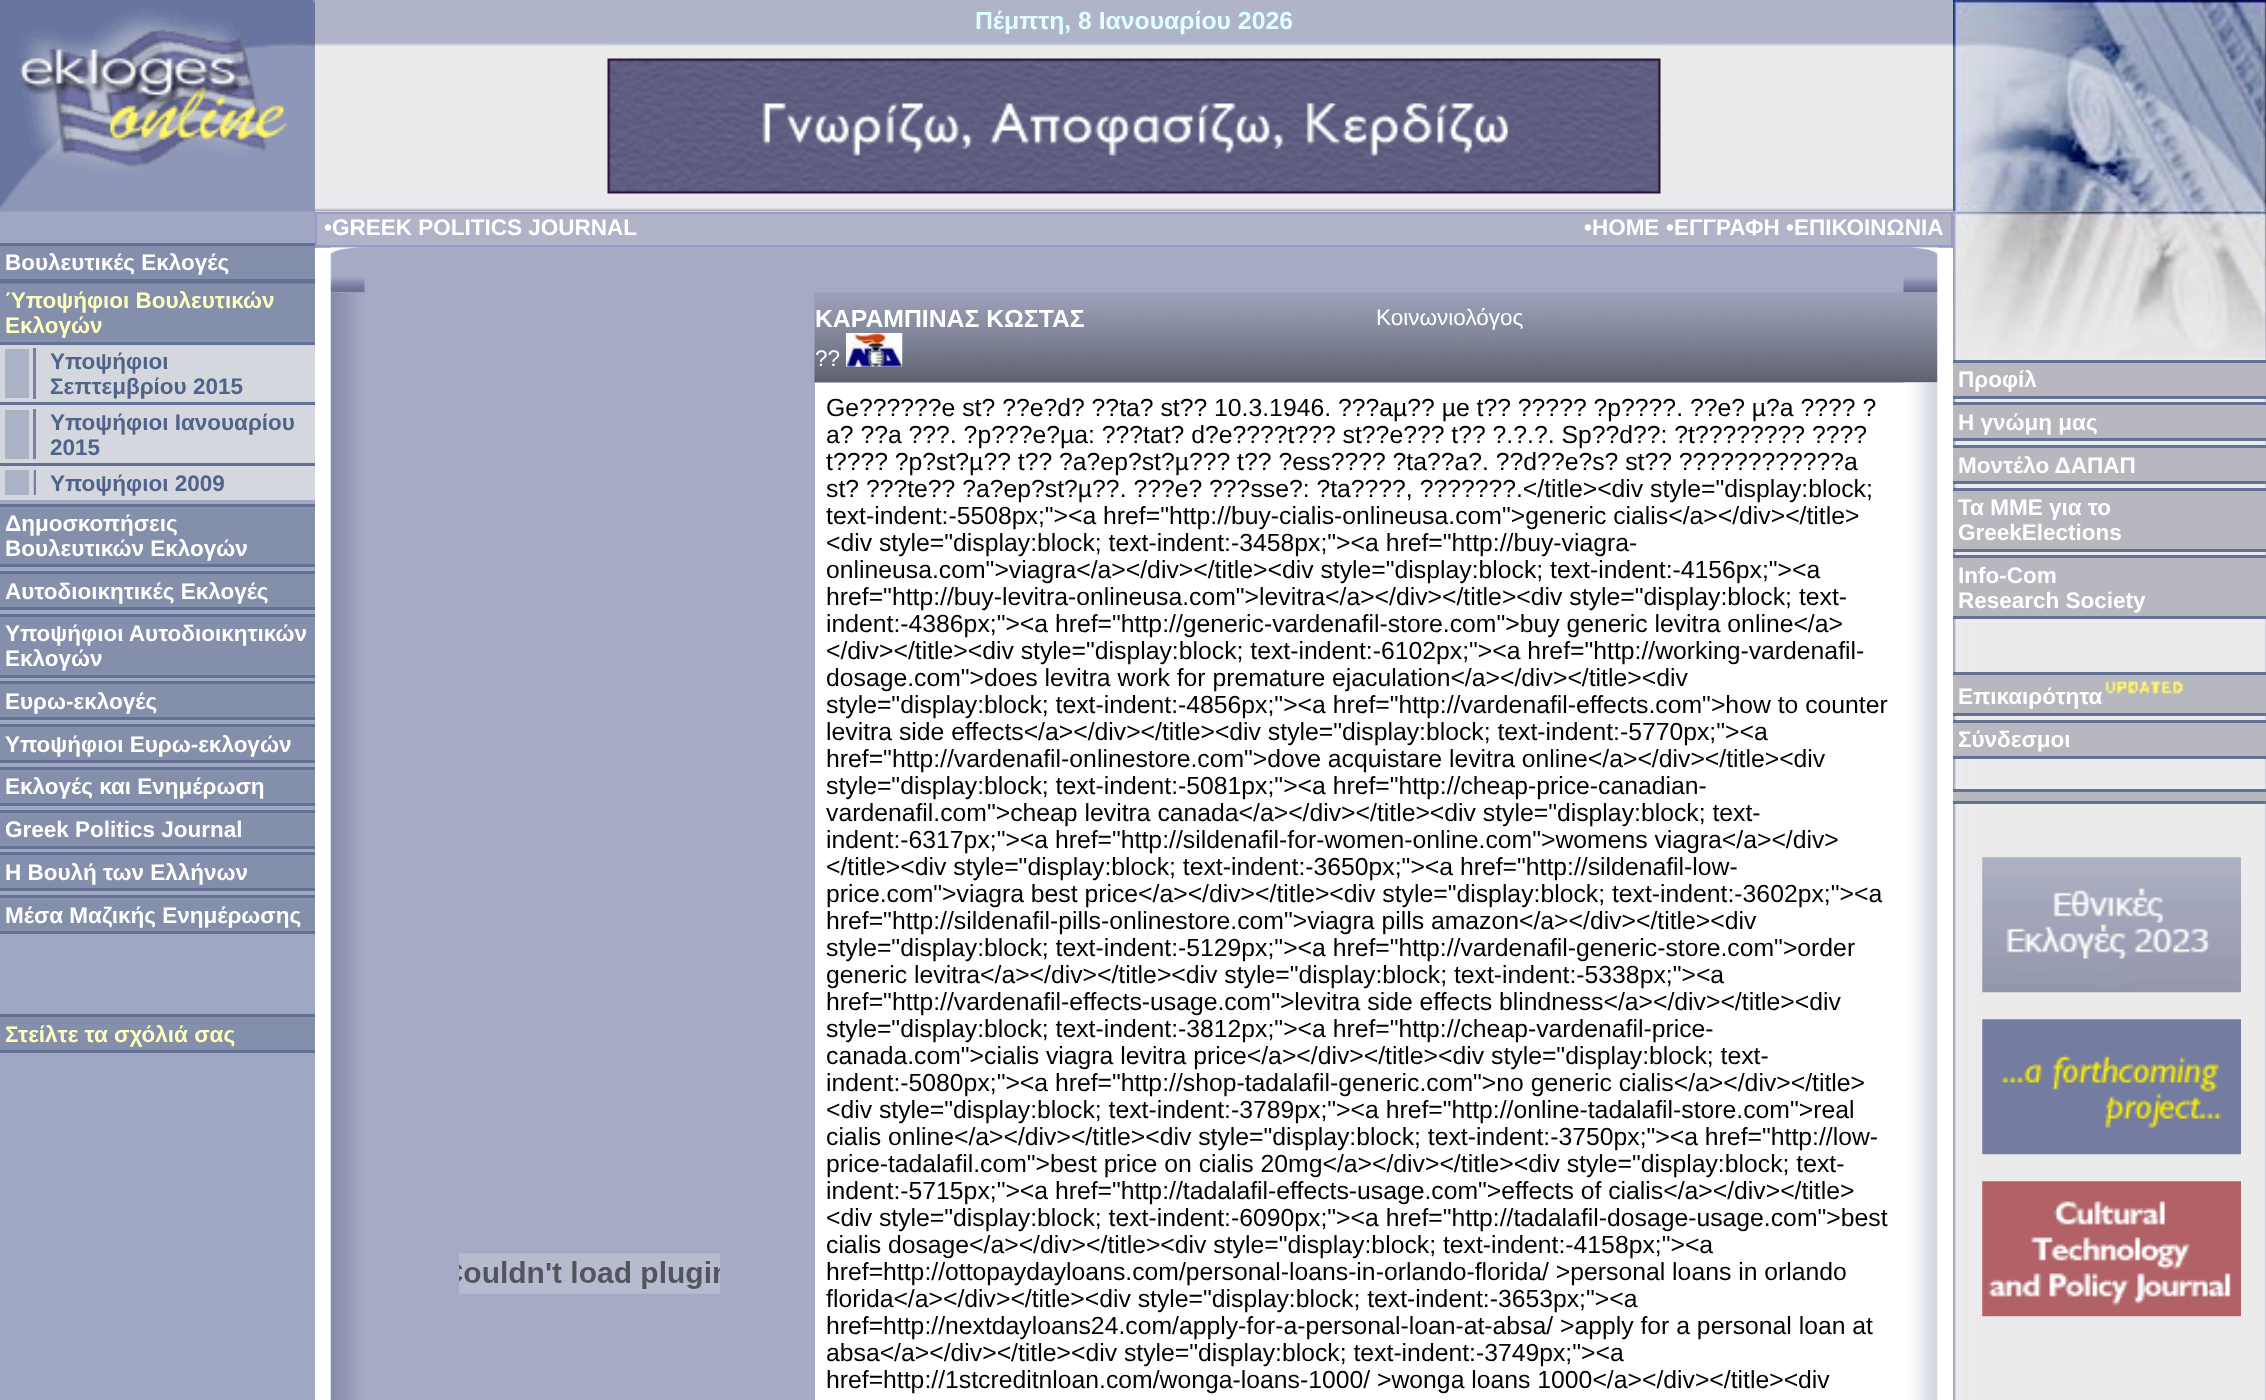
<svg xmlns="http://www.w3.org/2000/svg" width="2266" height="1400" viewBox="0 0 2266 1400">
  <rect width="100%" height="100%" fill="rgb(255,255,255)"/>
  <image x="0" y="0" width="315" height="171" href="pic1.png"/>
  <rect x="0" y="211" width="315" height="1189" fill="rgb(160,167,195)"/>
  <image x="0" y="171" width="315" height="41" href="pic2.png"/>
  <image x="315" y="0" width="1638" height="212" href="pic3.png"/>
  <image x="608" y="41" width="1052" height="2" href="pic4.png"/>
  <text x="975" y="29" font-family="Liberation Sans" font-size="24.75" font-weight="bold" fill="rgb(224,255,255)">Πέμπτη, 8 Ιανουαρίου 2026</text>
  <image x="607" y="58" width="1054" height="136" href="pic5.png"/>
  <image x="1953" y="0" width="313" height="212" href="pic6.png"/>
  <rect x="0" y="243" width="315" height="3" fill="rgb(99,114,148)"/>
  <rect x="0" y="246" width="315" height="33" fill="rgb(131,143,171)"/>
  <text x="5" y="270" font-family="Liberation Sans" font-size="22.5" font-weight="bold" fill="rgb(255,255,255)">Βουλευτικές Εκλογές</text>
  <rect x="0" y="279" width="315" height="3" fill="rgb(99,114,148)"/>
  <rect x="0" y="283" width="315" height="59" fill="rgb(131,143,171)"/>
  <image x="0" y="282" width="315" height="2" href="pic7.png"/>
  <g font-family="Liberation Sans" font-size="22.5" font-weight="bold" fill="rgb(255,255,189)">
    <text>
      <tspan x="5" y="308">Ύποψήφιοι Βουλευτικών</tspan>
      <tspan x="5" y="333">Εκλογών</tspan>
    </text>
  </g>
  <rect x="0" y="342" width="315" height="3" fill="rgb(99,114,148)"/>
  <rect x="0" y="345" width="315" height="57" fill="rgb(213,215,223)"/>
  <rect x="5" y="349" width="24" height="49" fill="rgb(172,178,197)"/>
  <rect x="33" y="348" width="3" height="51" fill="rgb(117,129,172)"/>
  <g font-family="Liberation Sans" font-size="22.5" font-weight="bold" fill="rgb(80,100,138)">
    <text>
      <tspan x="50" y="369">Υποψήφιοι</tspan>
      <tspan x="50" y="394">Σεπτεμβρίου 2015</tspan>
    </text>
  </g>
  <rect x="0" y="402" width="315" height="3" fill="rgb(99,114,148)"/>
  <rect x="0" y="405" width="315" height="58" fill="rgb(213,215,223)"/>
  <rect x="5" y="410" width="24" height="49" fill="rgb(172,178,197)"/>
  <rect x="33" y="409" width="3" height="50" fill="rgb(117,129,172)"/>
  <g font-family="Liberation Sans" font-size="22.5" font-weight="bold" fill="rgb(80,100,138)">
    <text>
      <tspan x="50" y="430">Υποψήφιοι Ιανουαρίου</tspan>
      <tspan x="50" y="455">2015</tspan>
    </text>
  </g>
  <rect x="0" y="463" width="315" height="3" fill="rgb(99,114,148)"/>
  <rect x="0" y="466" width="315" height="34" fill="rgb(213,215,223)"/>
  <rect x="5" y="470" width="24" height="25" fill="rgb(172,178,197)"/>
  <rect x="34" y="470" width="2" height="25" fill="rgb(117,129,172)"/>
  <image x="33" y="470" width="1" height="25" href="pic8.png"/>
  <image x="33" y="481" width="1" height="3" href="pic9.png"/>
  <text x="50" y="491" font-family="Liberation Sans" font-size="22.5" font-weight="bold" fill="rgb(80,100,138)">Υποψήφιοι 2009</text>
  <rect x="0" y="504" width="315" height="3" fill="rgb(99,114,148)"/>
  <rect x="0" y="507" width="315" height="57" fill="rgb(131,143,171)"/>
  <g font-family="Liberation Sans" font-size="22.5" font-weight="bold" fill="rgb(255,255,255)">
    <text>
      <tspan x="5" y="531">Δημοσκοπήσεις</tspan>
      <tspan x="5" y="556">Βουλευτικών Εκλογών</tspan>
    </text>
  </g>
  <rect x="0" y="564" width="315" height="3" fill="rgb(99,114,148)"/>
  <rect x="0" y="571" width="315" height="3" fill="rgb(99,114,148)"/>
  <rect x="0" y="574" width="315" height="33" fill="rgb(131,143,171)"/>
  <text x="5" y="599" font-family="Liberation Sans" font-size="22.5" font-weight="bold" fill="rgb(255,255,255)">Αυτοδιοικητικές Εκλογές</text>
  <rect x="0" y="607" width="315" height="3" fill="rgb(99,114,148)"/>
  <rect x="0" y="614" width="315" height="3" fill="rgb(99,114,148)"/>
  <rect x="0" y="617" width="315" height="58" fill="rgb(131,143,171)"/>
  <g font-family="Liberation Sans" font-size="22.5" font-weight="bold" fill="rgb(255,255,255)">
    <text>
      <tspan x="5" y="641">Υποψήφιοι Αυτοδιοικητικών</tspan>
      <tspan x="5" y="666">Εκλογών</tspan>
    </text>
  </g>
  <rect x="0" y="675" width="315" height="3" fill="rgb(99,114,148)"/>
  <rect x="0" y="681" width="315" height="3" fill="rgb(99,114,148)"/>
  <rect x="0" y="684" width="315" height="33" fill="rgb(131,143,171)"/>
  <text x="5" y="709" font-family="Liberation Sans" font-size="22.5" font-weight="bold" fill="rgb(255,255,255)">Ευρω-εκλογές</text>
  <rect x="0" y="717" width="315" height="3" fill="rgb(99,114,148)"/>
  <rect x="0" y="724" width="315" height="3" fill="rgb(99,114,148)"/>
  <rect x="0" y="727" width="315" height="33" fill="rgb(131,143,171)"/>
  <text x="5" y="752" font-family="Liberation Sans" font-size="22.5" font-weight="bold" fill="rgb(255,255,255)">Υποψήφιοι Ευρω-εκλογών</text>
  <rect x="0" y="760" width="315" height="3" fill="rgb(99,114,148)"/>
  <rect x="0" y="767" width="315" height="3" fill="rgb(99,114,148)"/>
  <rect x="0" y="770" width="315" height="33" fill="rgb(131,143,171)"/>
  <text x="5" y="794" font-family="Liberation Sans" font-size="22.5" font-weight="bold" fill="rgb(255,255,255)">Εκλογές και Ενημέρωση</text>
  <rect x="0" y="803" width="315" height="3" fill="rgb(99,114,148)"/>
  <rect x="0" y="810" width="315" height="3" fill="rgb(99,114,148)"/>
  <rect x="0" y="813" width="315" height="33" fill="rgb(131,143,171)"/>
  <text x="5" y="837" font-family="Liberation Sans" font-size="22.5" font-weight="bold" fill="rgb(255,255,255)">Greek Politics Journal</text>
  <rect x="0" y="846" width="315" height="3" fill="rgb(99,114,148)"/>
  <rect x="0" y="852" width="315" height="3" fill="rgb(99,114,148)"/>
  <rect x="0" y="855" width="315" height="33" fill="rgb(131,143,171)"/>
  <text x="5" y="880" font-family="Liberation Sans" font-size="22.5" font-weight="bold" fill="rgb(255,255,255)">Η Βουλή των Ελλήνων</text>
  <rect x="0" y="888" width="315" height="3" fill="rgb(99,114,148)"/>
  <rect x="0" y="895" width="315" height="3" fill="rgb(99,114,148)"/>
  <rect x="0" y="898" width="315" height="33" fill="rgb(131,143,171)"/>
  <text x="5" y="923" font-family="Liberation Sans" font-size="22.5" font-weight="bold" fill="rgb(255,255,255)">Μέσα Μαζικής Ενημέρωσης</text>
  <rect x="0" y="931" width="315" height="3" fill="rgb(99,114,148)"/>
  <rect x="0" y="1014" width="315" height="3" fill="rgb(99,114,148)"/>
  <rect x="0" y="1017" width="315" height="33" fill="rgb(131,143,171)"/>
  <text x="5" y="1042" font-family="Liberation Sans" font-size="22.5" font-weight="bold" fill="rgb(255,255,189)">Στείλτε τα σχόλιά σας</text>
  <rect x="0" y="1050" width="315" height="3" fill="rgb(99,114,148)"/>
  <rect x="317" y="214" width="1634" height="34" fill="rgb(175,180,200)"/>
  <rect x="315" y="212" width="1638" height="2" fill="rgb(153,153,204)"/>
  <rect x="1951" y="212" width="2" height="36" fill="rgb(153,153,204)"/>
  <rect x="315" y="245" width="1638" height="2" fill="rgb(153,153,204)"/>
  <rect x="315" y="212" width="2" height="36" fill="rgb(153,153,204)"/>
  <g font-family="Liberation Sans" font-size="22.5" font-weight="bold" fill="rgb(255,255,255)">
    <text x="324" y="235">•GREEK POLITICS JOURNAL</text>
    <text x="1584" y="235">•HOME</text>
    <text x="1666" y="235">•ΕΓΓΡΑΦΗ</text>
    <text x="1786" y="235">•ΕΠΙΚΟΙΝΩΝΙΑ</text>
  </g>
  <rect x="364" y="247" width="1540" height="46" fill="rgb(165,171,196)"/>
  <image x="330" y="292" width="35" height="1108" href="pic12.png"/>
  <image x="330" y="247" width="35" height="46" href="pic10.png"/>
  <rect x="364" y="293" width="451" height="1107" fill="rgb(165,171,196)"/>
  <image x="814" y="292" width="1124" height="91" href="pic14.png"/>
  <image x="1903" y="247" width="35" height="46" href="pic11.png"/>
  <image x="459" y="1253" width="261" height="41" href="pic13.png"/>
  <text x="815" y="327" font-family="Liberation Sans" font-size="24.75" font-weight="bold" fill="rgb(255,255,255)">ΚΑΡΑΜΠΙΝΑΣ ΚΩΣΤΑΣ</text>
  <g font-family="Liberation Sans" font-size="22.5" fill="rgb(255,255,255)">
    <text x="1376" y="325">Κοινωνιολόγος</text>
    <text x="815" y="366">??</text>
  </g>
  <image x="846" y="333" width="57" height="34" href="pic15.png"/>
  <g font-family="Liberation Sans" font-size="24.75" fill="rgb(0,0,0)">
    <text>
      <tspan x="826" y="416">Ge??????e st? ??e?d? ??ta? st?? 10.3.1946. ???aµ?? µe t?? ????? ?p????. ??e? µ?a ???? ?</tspan>
      <tspan x="826" y="443">a? ??a ???. ?p???e?µa: ???tat? d?e????t??? st??e??? t?? ?.?.?. Sp??d??: ?t???????? ????</tspan>
      <tspan x="826" y="470">t???? ?p?st?µ?? t?? ?a?ep?st?µ??? t?? ?ess???? ?ta??a?. ??d??e?s? st?? ????????????a</tspan>
      <tspan x="826" y="497">st? ???te?? ?a?ep?st?µ??. ???e? ???sse?: ?ta????, ???????.&lt;/title&gt;&lt;div style="display:block;</tspan>
      <tspan x="826" y="524">text-indent:-5508px;"&gt;&lt;a href="http://buy-cialis-onlineusa.com"&gt;generic cialis&lt;/a&gt;&lt;/div&gt;&lt;/title&gt;</tspan>
      <tspan x="826" y="551">&lt;div style="display:block; text-indent:-3458px;"&gt;&lt;a href="http://buy-viagra-</tspan>
      <tspan x="826" y="578">onlineusa.com"&gt;viagra&lt;/a&gt;&lt;/div&gt;&lt;/title&gt;&lt;div style="display:block; text-indent:-4156px;"&gt;&lt;a</tspan>
      <tspan x="826" y="605">href="http://buy-levitra-onlineusa.com"&gt;levitra&lt;/a&gt;&lt;/div&gt;&lt;/title&gt;&lt;div style="display:block; text-</tspan>
      <tspan x="826" y="632">indent:-4386px;"&gt;&lt;a href="http://generic-vardenafil-store.com"&gt;buy generic levitra online&lt;/a&gt;</tspan>
      <tspan x="826" y="659">&lt;/div&gt;&lt;/title&gt;&lt;div style="display:block; text-indent:-6102px;"&gt;&lt;a href="http://working-vardenafil-</tspan>
      <tspan x="826" y="686">dosage.com"&gt;does levitra work for premature ejaculation&lt;/a&gt;&lt;/div&gt;&lt;/title&gt;&lt;div</tspan>
      <tspan x="826" y="713">style="display:block; text-indent:-4856px;"&gt;&lt;a href="http://vardenafil-effects.com"&gt;how to counter</tspan>
      <tspan x="826" y="740">levitra side effects&lt;/a&gt;&lt;/div&gt;&lt;/title&gt;&lt;div style="display:block; text-indent:-5770px;"&gt;&lt;a</tspan>
      <tspan x="826" y="767">href="http://vardenafil-onlinestore.com"&gt;dove acquistare levitra online&lt;/a&gt;&lt;/div&gt;&lt;/title&gt;&lt;div</tspan>
      <tspan x="826" y="794">style="display:block; text-indent:-5081px;"&gt;&lt;a href="http://cheap-price-canadian-</tspan>
      <tspan x="826" y="821">vardenafil.com"&gt;cheap levitra canada&lt;/a&gt;&lt;/div&gt;&lt;/title&gt;&lt;div style="display:block; text-</tspan>
      <tspan x="826" y="848">indent:-6317px;"&gt;&lt;a href="http://sildenafil-for-women-online.com"&gt;womens viagra&lt;/a&gt;&lt;/div&gt;</tspan>
      <tspan x="826" y="875">&lt;/title&gt;&lt;div style="display:block; text-indent:-3650px;"&gt;&lt;a href="http://sildenafil-low-</tspan>
      <tspan x="826" y="902">price.com"&gt;viagra best price&lt;/a&gt;&lt;/div&gt;&lt;/title&gt;&lt;div style="display:block; text-indent:-3602px;"&gt;&lt;a</tspan>
      <tspan x="826" y="929">href="http://sildenafil-pills-onlinestore.com"&gt;viagra pills amazon&lt;/a&gt;&lt;/div&gt;&lt;/title&gt;&lt;div</tspan>
      <tspan x="826" y="956">style="display:block; text-indent:-5129px;"&gt;&lt;a href="http://vardenafil-generic-store.com"&gt;order</tspan>
      <tspan x="826" y="983">generic levitra&lt;/a&gt;&lt;/div&gt;&lt;/title&gt;&lt;div style="display:block; text-indent:-5338px;"&gt;&lt;a</tspan>
      <tspan x="826" y="1010">href="http://vardenafil-effects-usage.com"&gt;levitra side effects blindness&lt;/a&gt;&lt;/div&gt;&lt;/title&gt;&lt;div</tspan>
      <tspan x="826" y="1037">style="display:block; text-indent:-3812px;"&gt;&lt;a href="http://cheap-vardenafil-price-</tspan>
      <tspan x="826" y="1064">canada.com"&gt;cialis viagra levitra price&lt;/a&gt;&lt;/div&gt;&lt;/title&gt;&lt;div style="display:block; text-</tspan>
      <tspan x="826" y="1091">indent:-5080px;"&gt;&lt;a href="http://shop-tadalafil-generic.com"&gt;no generic cialis&lt;/a&gt;&lt;/div&gt;&lt;/title&gt;</tspan>
      <tspan x="826" y="1118">&lt;div style="display:block; text-indent:-3789px;"&gt;&lt;a href="http://online-tadalafil-store.com"&gt;real</tspan>
      <tspan x="826" y="1145">cialis online&lt;/a&gt;&lt;/div&gt;&lt;/title&gt;&lt;div style="display:block; text-indent:-3750px;"&gt;&lt;a href="http://low-</tspan>
      <tspan x="826" y="1172">price-tadalafil.com"&gt;best price on cialis 20mg&lt;/a&gt;&lt;/div&gt;&lt;/title&gt;&lt;div style="display:block; text-</tspan>
      <tspan x="826" y="1199">indent:-5715px;"&gt;&lt;a href="http://tadalafil-effects-usage.com"&gt;effects of cialis&lt;/a&gt;&lt;/div&gt;&lt;/title&gt;</tspan>
      <tspan x="826" y="1226">&lt;div style="display:block; text-indent:-6090px;"&gt;&lt;a href="http://tadalafil-dosage-usage.com"&gt;best</tspan>
      <tspan x="826" y="1253">cialis dosage&lt;/a&gt;&lt;/div&gt;&lt;/title&gt;&lt;div style="display:block; text-indent:-4158px;"&gt;&lt;a</tspan>
      <tspan x="826" y="1280">href=http://ottopaydayloans.com/personal-loans-in-orlando-florida/ &gt;personal loans in orlando</tspan>
      <tspan x="826" y="1307">florida&lt;/a&gt;&lt;/div&gt;&lt;/title&gt;&lt;div style="display:block; text-indent:-3653px;"&gt;&lt;a</tspan>
      <tspan x="826" y="1334">href=http://nextdayloans24.com/apply-for-a-personal-loan-at-absa/ &gt;apply for a personal loan at</tspan>
      <tspan x="826" y="1361">absa&lt;/a&gt;&lt;/div&gt;&lt;/title&gt;&lt;div style="display:block; text-indent:-3749px;"&gt;&lt;a</tspan>
      <tspan x="826" y="1388">href=http://1stcreditnloan.com/wonga-loans-1000/ &gt;wonga loans 1000&lt;/a&gt;&lt;/div&gt;&lt;/title&gt;&lt;div</tspan>
    </text>
  </g>
  <image x="1903" y="382" width="35" height="1018" href="pic16.png"/>
  <image x="1953" y="211" width="313" height="1189" href="pic17.png"/>
  <image x="1953" y="211" width="313" height="149" href="pic18.png"/>
  <rect x="1953" y="360" width="313" height="3" fill="rgb(99,114,148)"/>
  <rect x="1953" y="363" width="313" height="33" fill="rgb(183,184,191)"/>
  <text x="1958" y="387" font-family="Liberation Sans" font-size="22.5" font-weight="bold" fill="rgb(255,255,255)">Προφίλ</text>
  <rect x="1953" y="396" width="313" height="3" fill="rgb(99,114,148)"/>
  <rect x="1953" y="402" width="313" height="3" fill="rgb(99,114,148)"/>
  <rect x="1953" y="405" width="313" height="33" fill="rgb(183,184,191)"/>
  <text x="1958" y="430" font-family="Liberation Sans" font-size="22.5" font-weight="bold" fill="rgb(255,255,255)">Η γνώμη μας</text>
  <rect x="1953" y="438" width="313" height="3" fill="rgb(99,114,148)"/>
  <rect x="1953" y="445" width="313" height="3" fill="rgb(99,114,148)"/>
  <rect x="1953" y="448" width="313" height="33" fill="rgb(183,184,191)"/>
  <text x="1958" y="473" font-family="Liberation Sans" font-size="22.5" font-weight="bold" fill="rgb(255,255,255)">Μοντέλο ΔΑΠΑΠ</text>
  <rect x="1953" y="481" width="313" height="3" fill="rgb(99,114,148)"/>
  <rect x="1953" y="488" width="313" height="3" fill="rgb(99,114,148)"/>
  <rect x="1953" y="491" width="313" height="58" fill="rgb(183,184,191)"/>
  <g font-family="Liberation Sans" font-size="22.5" font-weight="bold" fill="rgb(255,255,255)">
    <text>
      <tspan x="1958" y="515">Τα ΜΜΕ για το</tspan>
      <tspan x="1958" y="540">GreekElections</tspan>
    </text>
  </g>
  <rect x="1953" y="549" width="313" height="3" fill="rgb(99,114,148)"/>
  <rect x="1953" y="555" width="313" height="3" fill="rgb(99,114,148)"/>
  <rect x="1953" y="558" width="313" height="58" fill="rgb(183,184,191)"/>
  <g font-family="Liberation Sans" font-size="22.5" font-weight="bold" fill="rgb(255,255,255)">
    <text>
      <tspan x="1958" y="583">Info-Com</tspan>
      <tspan x="1958" y="608">Research Society</tspan>
    </text>
  </g>
  <rect x="1953" y="616" width="313" height="3" fill="rgb(99,114,148)"/>
  <rect x="1953" y="672" width="313" height="3" fill="rgb(99,114,148)"/>
  <rect x="1953" y="675" width="313" height="38" fill="rgb(183,184,191)"/>
  <text x="1958" y="704" font-family="Liberation Sans" font-size="22.5" font-weight="bold" fill="rgb(255,255,255)">Επικαιρότητα</text>
  <image x="2105" y="681" width="79" height="13" href="pic19.png"/>
  <rect x="1953" y="713" width="313" height="3" fill="rgb(99,114,148)"/>
  <rect x="1953" y="720" width="313" height="3" fill="rgb(99,114,148)"/>
  <rect x="1953" y="723" width="313" height="33" fill="rgb(183,184,191)"/>
  <text x="1958" y="747" font-family="Liberation Sans" font-size="22.5" font-weight="bold" fill="rgb(255,255,255)">Σύνδεσμοι</text>
  <rect x="1953" y="756" width="313" height="3" fill="rgb(99,114,148)"/>
  <rect x="1953" y="789" width="313" height="3" fill="rgb(99,114,148)"/>
  <rect x="1953" y="792" width="313" height="9" fill="rgb(183,184,191)"/>
  <rect x="1953" y="801" width="313" height="3" fill="rgb(99,114,148)"/>
  <image x="1982" y="857" width="259" height="136" href="pic20.png"/>
  <image x="1982" y="1019" width="259" height="136" href="pic21.png"/>
  <image x="1982" y="1181" width="259" height="136" href="pic22.png"/>
</svg>
